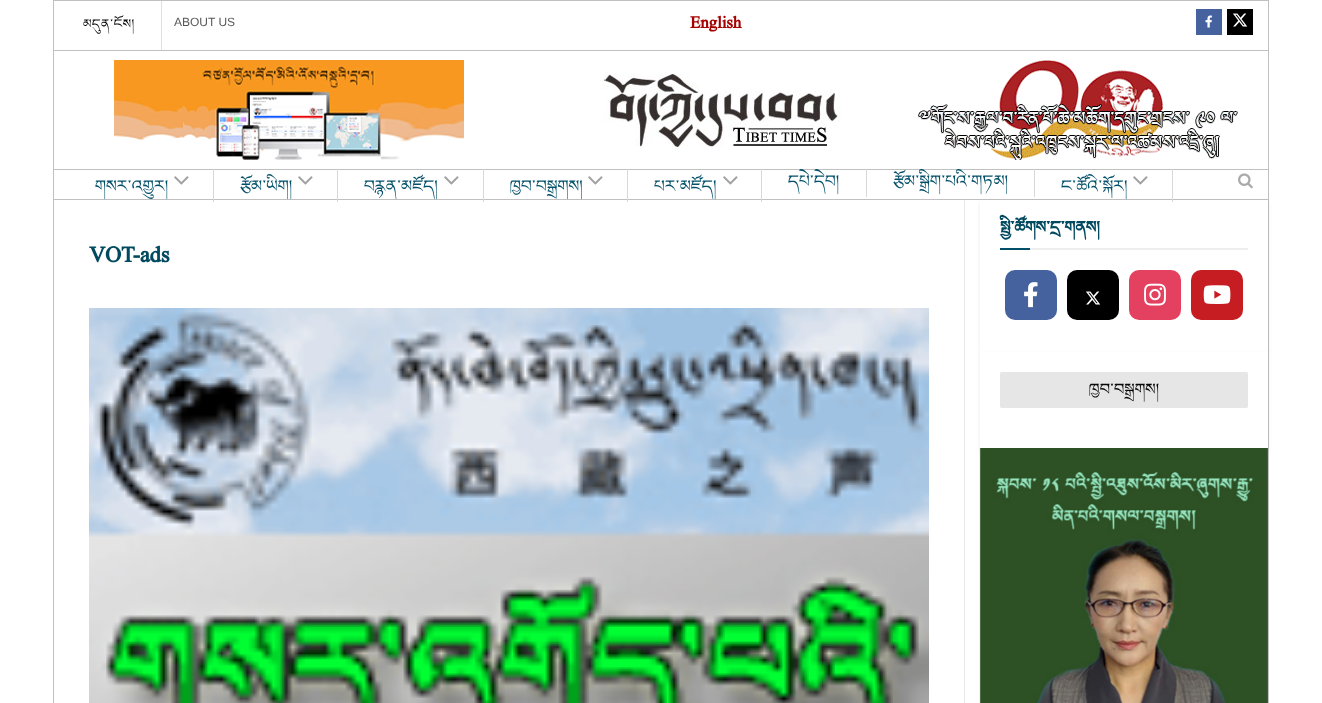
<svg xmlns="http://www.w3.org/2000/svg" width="1322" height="703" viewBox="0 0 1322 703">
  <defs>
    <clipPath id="clip1"><path d="M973 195H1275V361H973ZM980 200H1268V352H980Z" clip-rule="evenodd"/></clipPath>
  </defs>
  <rect width="100%" height="100%" fill="rgb(255,255,255)"/>
  <rect x="53" y="0" width="1216" height="1" fill="rgb(192,192,192)"/>
  <rect x="1268" y="0" width="1" height="50" fill="rgb(192,192,192)"/>
  <rect x="53" y="0" width="1" height="50" fill="rgb(192,192,192)"/>
  <rect x="161" y="1" width="1" height="49" fill="rgb(224,224,224)"/>
  <text x="83" y="26" font-family="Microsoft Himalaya" font-size="20" letter-spacing="0.5" fill="rgb(0,0,0)">མདུན་ངོས།</text>
  <text x="174" y="26" font-family="Liberation Sans" font-size="12" fill="rgb(89,89,89)">ABOUT US</text>
  <text x="690" y="28" font-family="Microsoft Himalaya" font-size="25" font-weight="bold" fill="rgb(166,2,2)">English</text>
  <rect x="1196" y="9" width="26" height="26" fill="rgb(69,98,159)"/>
  <image x="1205" y="15" width="7" height="13" href="pic1.png"/>
  <rect x="1227" y="9" width="26" height="26" fill="rgb(0,0,0)"/>
  <image x="1233" y="13" width="15" height="14" href="pic2.png"/>
  <rect x="53" y="169" width="1216" height="1" fill="rgb(192,192,192)"/>
  <rect x="53.5" y="199.5" width="1215" height="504" fill="none" stroke="rgb(192,192,192)"/>
  <rect x="213" y="167" width="1" height="35" fill="rgb(216,216,216)"/>
  <rect x="337" y="167" width="1" height="35" fill="rgb(216,216,216)"/>
  <rect x="483" y="167" width="1" height="35" fill="rgb(216,216,216)"/>
  <rect x="627" y="167" width="1" height="35" fill="rgb(216,216,216)"/>
  <rect x="761" y="167" width="1" height="35" fill="rgb(216,216,216)"/>
  <rect x="866" y="167" width="1" height="30" fill="rgb(216,216,216)"/>
  <g clip-path="url(#clip1)">
    <rect x="980" y="202" width="288" height="152" fill="rgba(0,0,0,0.08)" filter="blur(2px)"/>
  </g>
  <rect x="1034" y="167" width="1" height="30" fill="rgb(216,216,216)"/>
  <rect x="1172" y="167" width="1" height="35" fill="rgb(216,216,216)"/>
  <rect x="213" y="167" width="960" height="2" fill="rgb(255,255,255)"/>
  <rect x="53" y="50" width="1216" height="1" fill="rgb(192,192,192)"/>
  <rect x="1268" y="50" width="1" height="119" fill="rgb(192,192,192)"/>
  <rect x="53" y="50" width="1" height="119" fill="rgb(192,192,192)"/>
  <image x="114" y="60" width="350" height="100" href="pic3.png"/>
  <image x="603" y="74" width="240" height="73" href="pic4.png"/>
  <image x="918" y="60" width="320" height="100" href="pic5.png"/>
  <rect x="1268" y="169" width="1" height="30" fill="rgb(192,192,192)"/>
  <rect x="53" y="169" width="1" height="30" fill="rgb(192,192,192)"/>
  <text x="95" y="189" font-family="Microsoft Himalaya" font-size="26" fill="rgb(2,79,105)">གསར་འགྱུར།</text>
  <image x="174" y="176" width="15" height="9" href="pic6.png"/>
  <text x="240" y="189" font-family="Microsoft Himalaya" font-size="26" fill="rgb(2,79,105)">རྩོམ་ཡིག།</text>
  <image x="298" y="176" width="15" height="9" href="pic6.png"/>
  <text x="364" y="189" font-family="Microsoft Himalaya" font-size="26" fill="rgb(2,79,105)">བརྙན་མཛོད།</text>
  <image x="444" y="176" width="15" height="9" href="pic6.png"/>
  <text x="510" y="189" font-family="Microsoft Himalaya" font-size="26" fill="rgb(2,79,105)">ཁྱབ་བསྒྲགས།</text>
  <image x="588" y="176" width="15" height="9" href="pic6.png"/>
  <text x="654" y="189" font-family="Microsoft Himalaya" font-size="26" fill="rgb(2,79,105)">པར་མཛོད།</text>
  <image x="723" y="176" width="15" height="9" href="pic6.png"/>
  <g font-family="Microsoft Himalaya" font-size="26" fill="rgb(2,79,105)">
    <text x="788" y="184">དཔེ་དེབ།</text>
    <text x="893" y="184">རྩོམ་སྒྲིག་པའི་གཏམ།</text>
    <text x="1061" y="189">ང་ཚོའི་སྐོར།</text>
  </g>
  <image x="1133" y="176" width="15" height="9" href="pic6.png"/>
  <image x="1238" y="173" width="15" height="16" href="pic7.png"/>
  <rect x="964" y="200" width="1" height="503" fill="rgb(232,232,232)"/>
  <text x="89" y="262" font-family="Microsoft Himalaya" font-size="33" font-weight="bold" fill="rgb(0,73,94)">VOT-ads</text>
  <image x="89" y="308" width="840" height="395" href="pic8.png"/>
  <rect x="1030" y="248" width="218" height="2" fill="rgb(238,238,238)"/>
  <text x="1000" y="230" font-family="Microsoft Himalaya" font-size="25" font-weight="bold" fill="rgb(0,73,94)">སྤྱི་ཚོགས་དྲ་གནས།</text>
  <rect x="1000" y="248" width="30" height="2" fill="rgb(2,79,105)"/>
  <rect x="1005" y="270" width="52" height="50" rx="10" fill="rgb(69,98,159)"/>
  <image x="1024" y="282" width="14" height="26" href="pic9.png"/>
  <rect x="1067" y="270" width="52" height="50" rx="10" fill="rgb(0,0,0)"/>
  <image x="1086" y="291" width="15" height="14" href="pic2.png"/>
  <rect x="1129" y="270" width="52" height="50" rx="10" fill="rgb(228,64,95)"/>
  <image x="1144" y="283" width="22" height="23" href="pic10.png"/>
  <rect x="1191" y="270" width="52" height="50" rx="10" fill="rgb(198,29,35)"/>
  <image x="1203" y="285" width="28" height="19" href="pic11.png"/>
  <rect x="980" y="354" width="288" height="96" fill="rgba(0,0,0,0.08)" filter="blur(2px)"/>
  <rect x="980" y="352" width="288" height="96" fill="rgb(255,255,255)"/>
  <rect x="1000" y="372" width="248" height="36" rx="2" fill="rgb(230,230,230)"/>
  <text x="1089" y="392" font-family="Microsoft Himalaya" font-size="25" fill="rgb(9,9,9)">ཁྱབ་བསྒྲགས།</text>
  <image x="979" y="448" width="289" height="255" href="pic12.png"/>
</svg>
